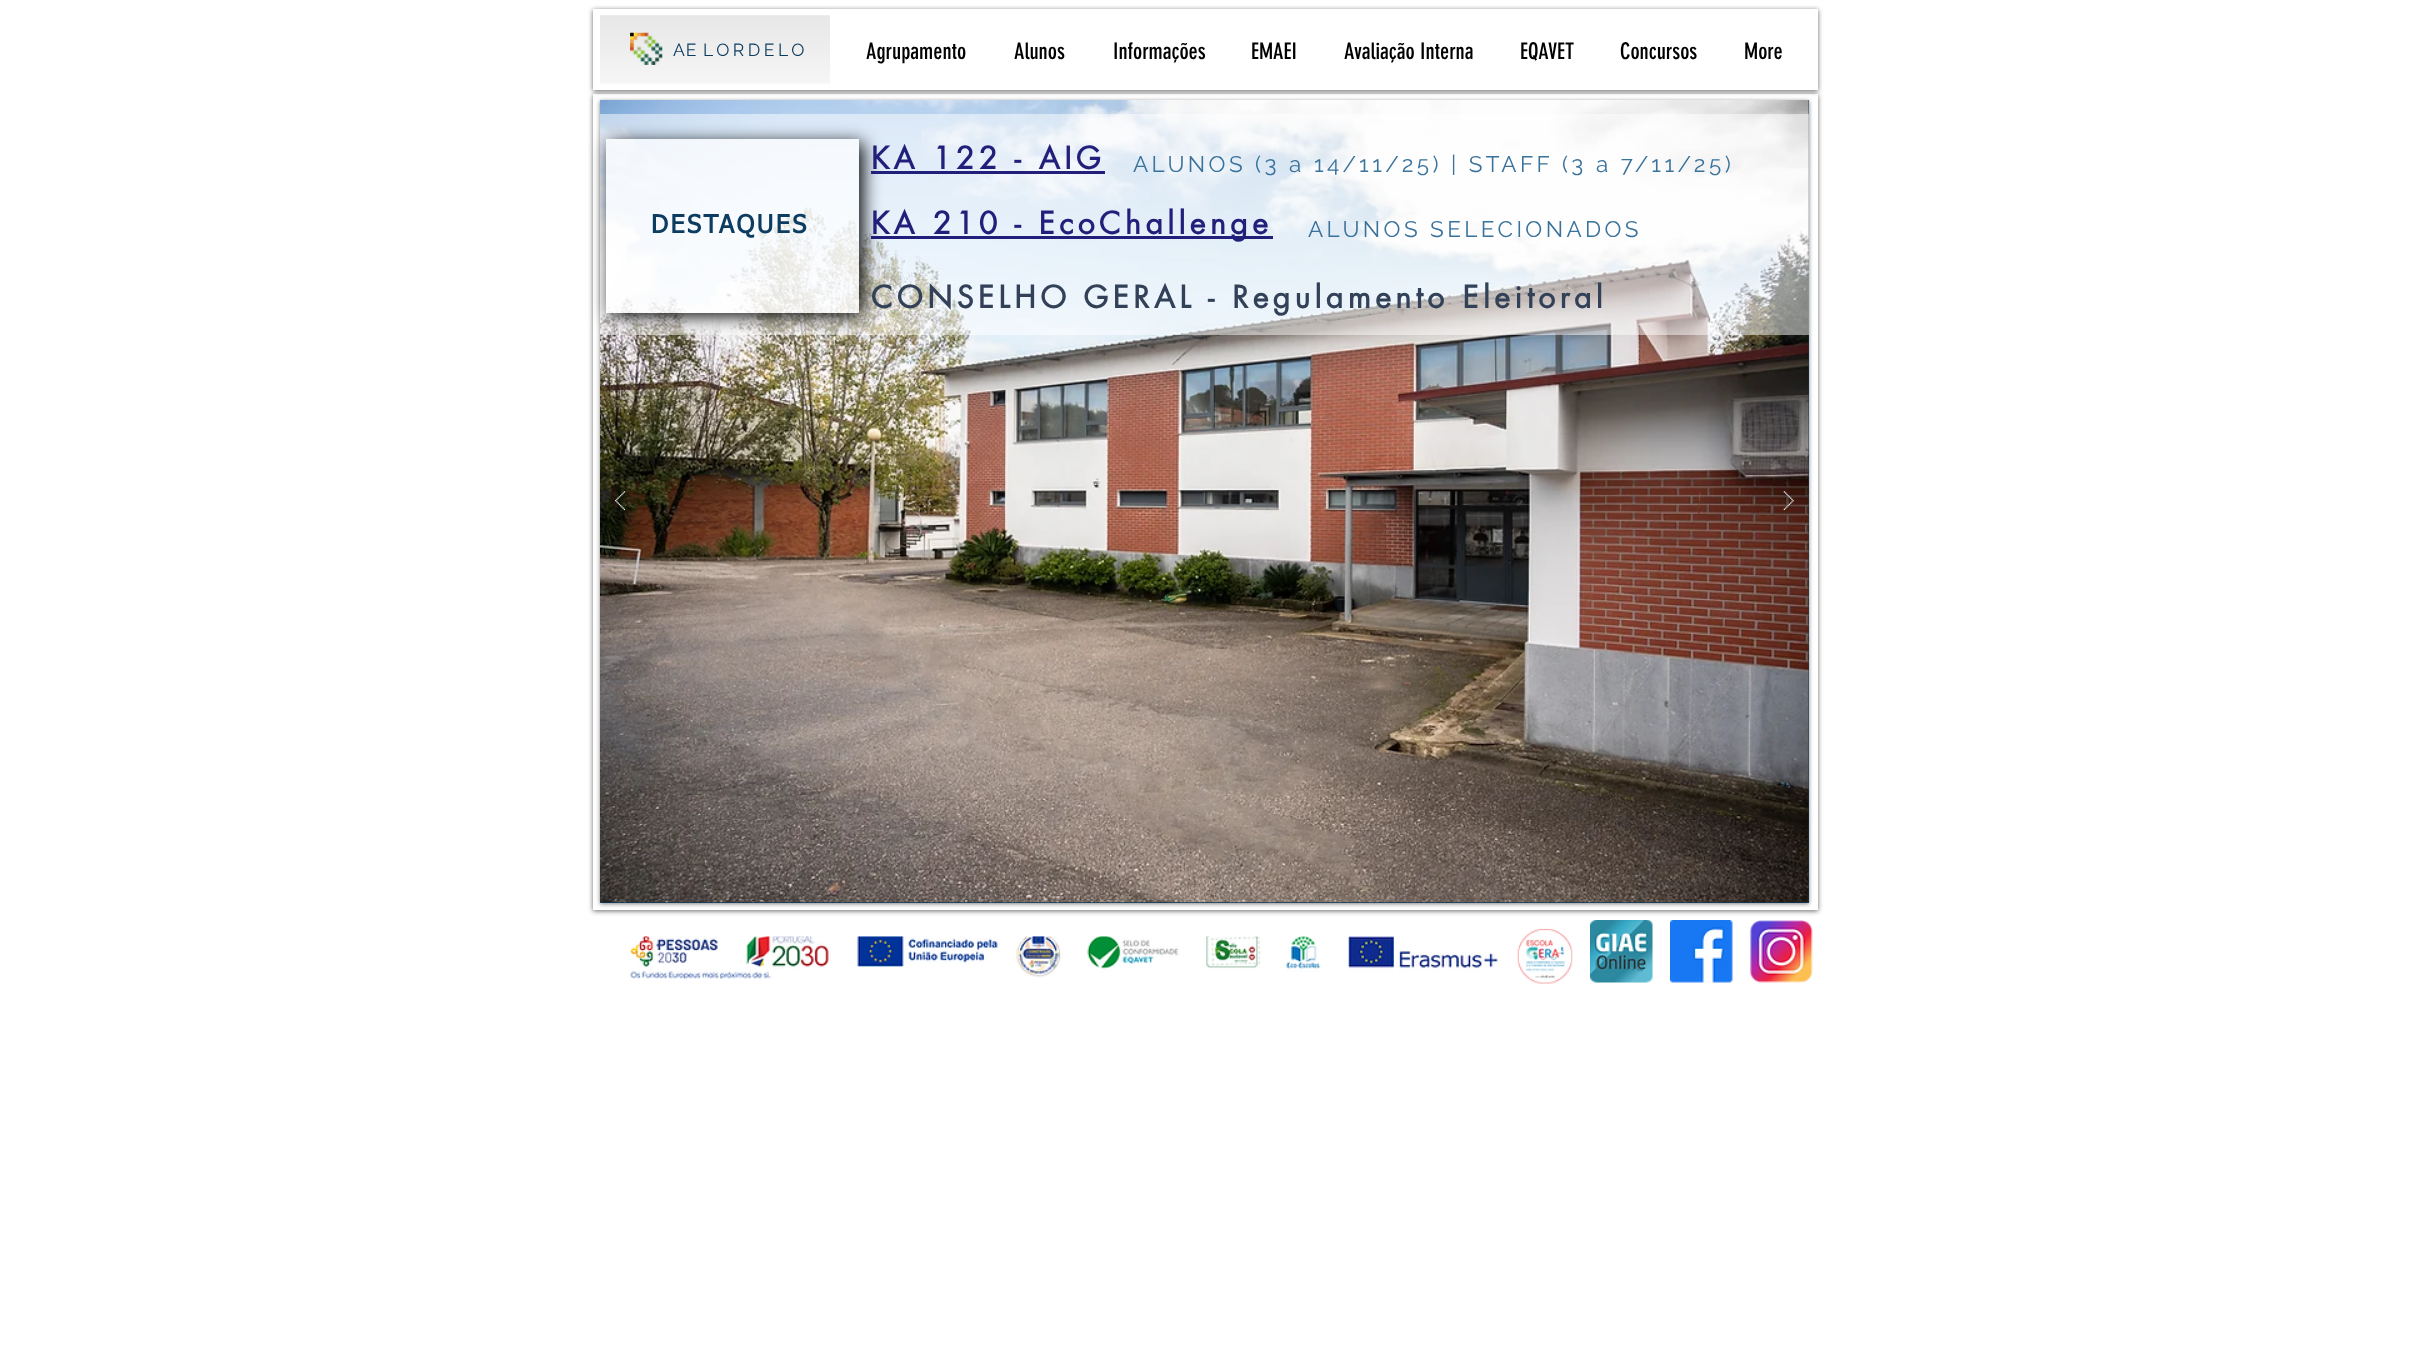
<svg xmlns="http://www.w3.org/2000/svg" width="2412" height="1357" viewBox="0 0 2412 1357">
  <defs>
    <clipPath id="clip1"><path d="M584 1H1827V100H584ZM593 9H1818V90H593Z" clip-rule="evenodd"/></clipPath>
    <clipPath id="clip2"><path d="M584 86H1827V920H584ZM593 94H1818V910H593Z" clip-rule="evenodd"/></clipPath>
    <clipPath id="clip3"><path d="M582 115H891V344H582ZM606 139H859V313H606Z" clip-rule="evenodd"/></clipPath>
  </defs>
  <rect width="100%" height="100%" fill="rgb(255,255,255)"/>
  <g clip-path="url(#clip1)">
    <rect x="593" y="10" width="1225" height="81" fill="rgba(0,0,0,0.6)" filter="blur(2.5px)"/>
  </g>
  <image x="600" y="15" width="230" height="69" href="pic1.png"/>
  <image x="630" y="32" width="33" height="33" href="pic2.png"/>
  <text x="673" y="56" font-family="Raleway" font-size="17.5" letter-spacing="1" fill="rgb(12,60,96)">AE</text>
  <text x="703" y="56" font-family="Raleway" font-size="17.5" letter-spacing="3.5" fill="rgb(12,60,96)">LORDELO</text>
  <g font-family="'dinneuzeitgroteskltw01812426'" font-size="22.5" fill="rgb(0,0,0)">
    <text x="866" y="59">Agrupamento</text>
    <text x="1014" y="59">Alunos</text>
    <text x="1113" y="59">Informações</text>
    <text x="1251" y="59">EMAEI</text>
    <text x="1344" y="59">Avaliação Interna</text>
    <text x="1520" y="59">EQAVET</text>
    <text x="1620" y="59">Concursos</text>
    <text x="1744" y="59">More</text>
  </g>
  <g clip-path="url(#clip2)">
    <rect x="593" y="95" width="1225" height="816" fill="rgba(0,0,0,0.6)" filter="blur(2.5px)"/>
  </g>
  <rect x="600" y="101" width="1209" height="803" fill="rgba(0,0,0,0.5)" filter="blur(2px)"/>
  <rect x="600" y="100" width="1209" height="803" fill="rgb(12,60,96)"/>
  <image x="600" y="100" width="1209" height="803" href="pic3.png"/>
  <image x="615" y="491" width="10" height="20" href="pic4.png"/>
  <image x="1783" y="491" width="11" height="21" href="pic5.png"/>
  <rect x="600" y="114" width="1209" height="221" fill="rgba(255,255,255,0.5)"/>
  <g clip-path="url(#clip3)">
    <rect x="610" y="143" width="253" height="173" fill="rgb(0,0,0)" filter="blur(9px)"/>
  </g>
  <text x="871" y="169" font-family="futura" font-size="30" font-weight="bold" letter-spacing="4.5" fill="rgb(34,31,123)">KA 122 - AIG</text>
  <rect x="871" y="171" width="234" height="3" fill="rgb(34,31,123)"/>
  <text x="1133" y="172" font-family="Raleway" font-size="22.5" letter-spacing="3.4" fill="rgb(57,114,155)">ALUNOS (3 a 14/11/25) | STAFF (3 a 7/11/25)</text>
  <rect x="606" y="139" width="253" height="174" fill="rgba(255,255,255,0.7)"/>
  <text x="651" y="233" font-family="tahoma" font-size="25" font-weight="bold" letter-spacing="2.5" fill="rgb(12,60,96)">DESTAQUES</text>
  <rect x="871" y="236" width="402" height="3" fill="rgb(34,31,123)"/>
  <text x="871" y="234" font-family="futura" font-size="30" font-weight="bold" letter-spacing="4.5" fill="rgb(34,31,123)">KA 210 - EcoChallenge</text>
  <text x="1308" y="237" font-family="Raleway" font-size="22.5" letter-spacing="3.4" fill="rgb(57,114,155)">ALUNOS SELECIONADOS</text>
  <text x="871" y="308" font-family="futura" font-size="30" font-weight="bold" letter-spacing="4.5" fill="rgb(50,65,88)">CONSELHO GERAL - Regulamento Eleitoral</text>
  <image x="630" y="936" width="868" height="43" href="pic6.png"/>
  <image x="1517" y="928" width="56" height="56" href="pic7.png"/>
  <image x="1590" y="920" width="63" height="63" href="pic8.png"/>
  <image x="1670" y="920" width="63" height="63" href="pic9.png"/>
  <image x="1750" y="920" width="63" height="63" href="pic10.png"/>
</svg>
